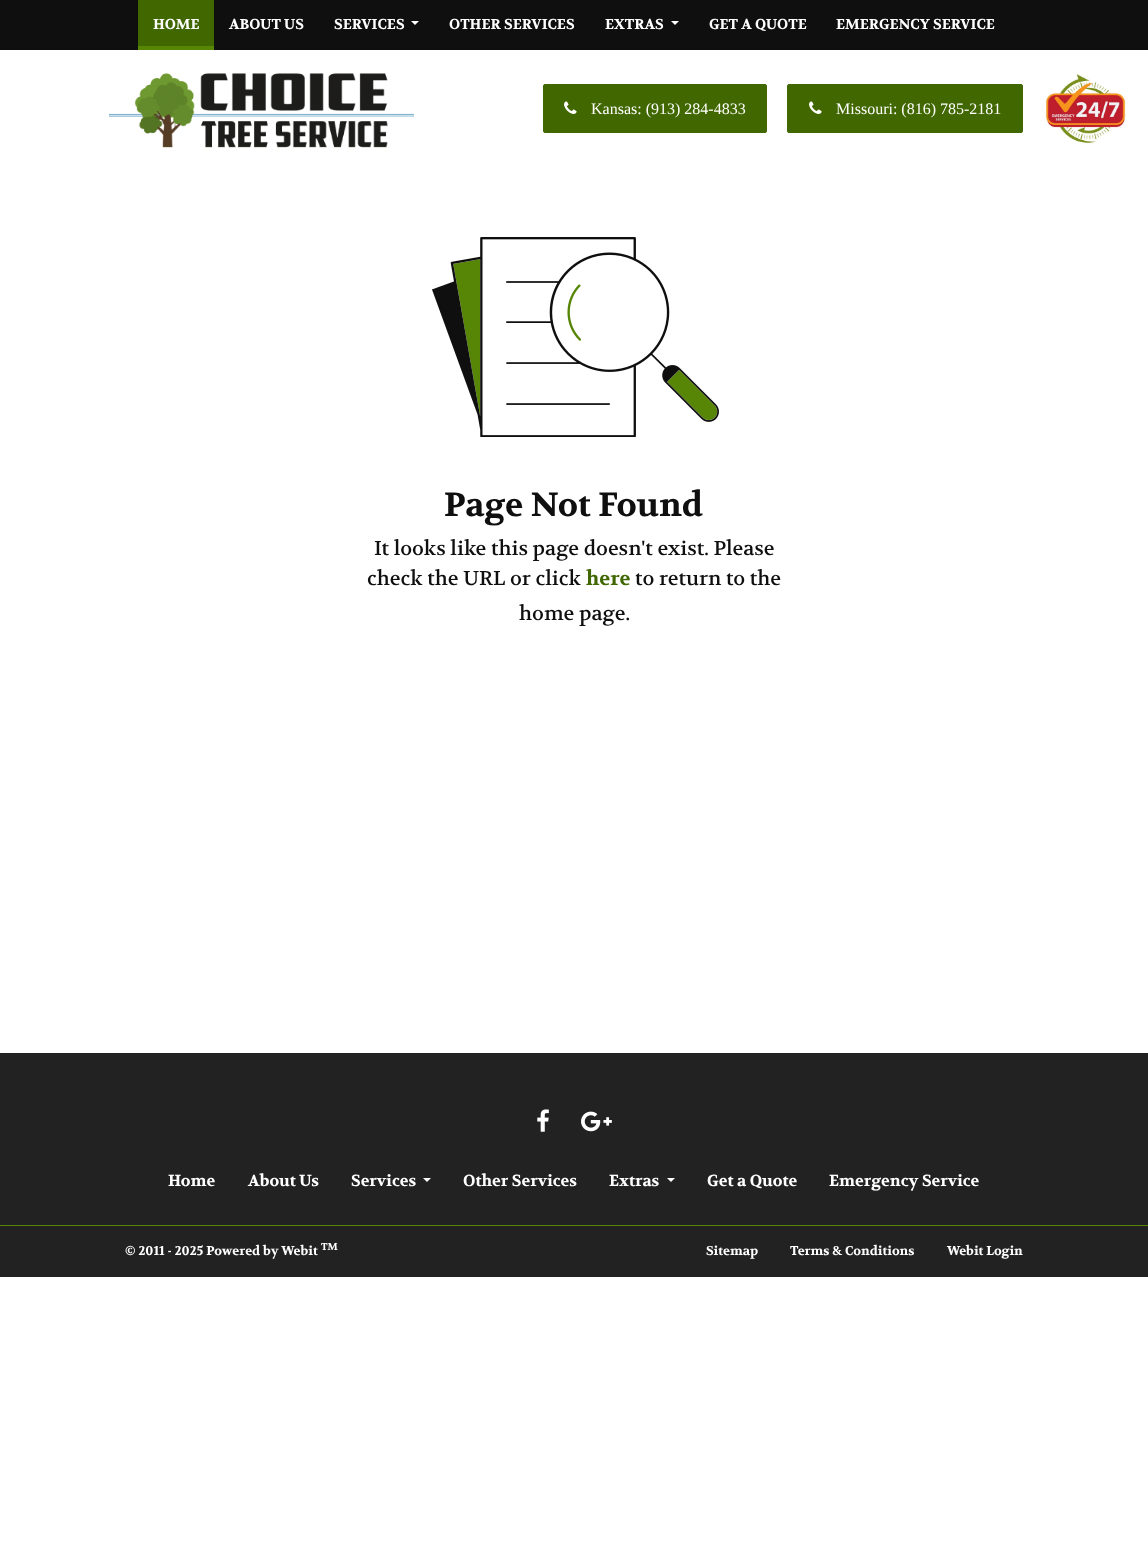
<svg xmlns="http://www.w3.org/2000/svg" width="1148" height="1552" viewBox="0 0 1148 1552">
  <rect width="100%" height="100%" fill="rgb(255,255,255)"/>
  <rect x="0" y="0" width="1148" height="50" fill="rgb(15,15,15)"/>
  <rect x="138" y="0" width="76" height="46" fill="rgb(65,103,0)"/>
  <text x="153" y="29" font-family="Volkhov" font-size="14.4" font-weight="bold" fill="rgb(255,255,255)">HOME</text>
  <rect x="138" y="46" width="76" height="4" fill="rgb(87,134,7)"/>
  <g font-family="Volkhov" font-size="14.4" font-weight="bold" fill="rgb(255,255,255)">
    <text x="229" y="29">ABOUT US</text>
    <text x="334" y="29">SERVICES</text>
  </g>
  <path d="M411 21H419L415 25Z" fill="rgb(255,255,255)"/>
  <g font-family="Volkhov" font-size="14.4" font-weight="bold" fill="rgb(255,255,255)">
    <text x="449" y="29">OTHER SERVICES</text>
    <text x="605" y="29">EXTRAS</text>
  </g>
  <path d="M671 21H679L675 25Z" fill="rgb(255,255,255)"/>
  <g font-family="Volkhov" font-size="14.4" font-weight="bold" fill="rgb(255,255,255)">
    <text x="709" y="29">GET A QUOTE</text>
    <text x="836" y="29">EMERGENCY SERVICE</text>
  </g>
  <image x="109" y="73" width="305" height="75" href="pic1.png"/>
  <rect x="543.5" y="84.5" width="223" height="48" rx="1.5" fill="rgb(65,103,0)" stroke="rgb(65,103,0)"/>
  <image x="564" y="101" width="13" height="13" href="pic2.png"/>
  <text x="591" y="114" font-family="Liberation Serif" font-size="16" fill="rgb(255,255,255)">Kansas: (913) 284-4833</text>
  <rect x="787.5" y="84.5" width="235" height="48" rx="1.5" fill="rgb(65,103,0)" stroke="rgb(65,103,0)"/>
  <image x="809" y="101" width="13" height="13" href="pic2.png"/>
  <text x="836" y="114" font-family="Liberation Serif" font-size="16" fill="rgb(255,255,255)">Missouri: (816) 785-2181</text>
  <image x="1045" y="74" width="81" height="70" href="pic3.png"/>
  <image x="432" y="237" width="287" height="200" href="pic4.png"/>
  <text x="444" y="516" font-family="Volkhov" font-size="33.5" font-weight="bold" fill="rgb(15,15,15)">Page Not Found</text>
  <g font-family="Volkhov" font-size="20" fill="rgb(15,15,15)">
    <text x="374" y="555">It looks like this page doesn't exist. Please</text>
    <text x="367" y="585">check the URL or click</text>
  </g>
  <text x="586" y="585" font-family="Volkhov" font-size="20" font-weight="bold" fill="rgb(65,103,0)">here</text>
  <g font-family="Volkhov" font-size="20" fill="rgb(15,15,15)">
    <text x="635" y="585">to return to the</text>
    <text x="519" y="620">home page.</text>
  </g>
  <rect x="0" y="1053" width="1148" height="224" fill="rgb(34,34,34)"/>
  <image x="537" y="1109" width="12" height="23" href="pic5.png"/>
  <image x="581" y="1111" width="31" height="21" href="pic6.png"/>
  <g font-family="Volkhov" font-size="16" font-weight="bold" fill="rgb(255,255,255)">
    <text x="168" y="1186">Home</text>
    <text x="248" y="1186">About Us</text>
    <text x="351" y="1186">Services</text>
  </g>
  <path d="M423 1178H431L427 1182Z" fill="rgb(255,255,255)"/>
  <g font-family="Volkhov" font-size="16" font-weight="bold" fill="rgb(255,255,255)">
    <text x="463" y="1186">Other Services</text>
    <text x="609" y="1186">Extras</text>
  </g>
  <path d="M667 1178H675L671 1182Z" fill="rgb(255,255,255)"/>
  <g font-family="Volkhov" font-size="16" font-weight="bold" fill="rgb(255,255,255)">
    <text x="707" y="1186">Get a Quote</text>
    <text x="829" y="1186">Emergency Service</text>
  </g>
  <rect x="0" y="1225" width="1148" height="1" fill="rgb(87,134,7)"/>
  <text x="125" y="1255" font-family="Volkhov" font-size="12.75" font-weight="bold" fill="rgb(255,255,255)">© 2011 - 2025 Powered by Webit</text>
  <text x="321" y="1250" font-family="Volkhov" font-size="10" font-weight="bold" fill="rgb(255,255,255)">TM</text>
  <g font-family="Volkhov" font-size="12.75" font-weight="bold" fill="rgb(255,255,255)">
    <text x="706" y="1255">Sitemap</text>
    <text x="790" y="1255">Terms &amp; Conditions</text>
    <text x="947" y="1255">Webit Login</text>
  </g>
</svg>
